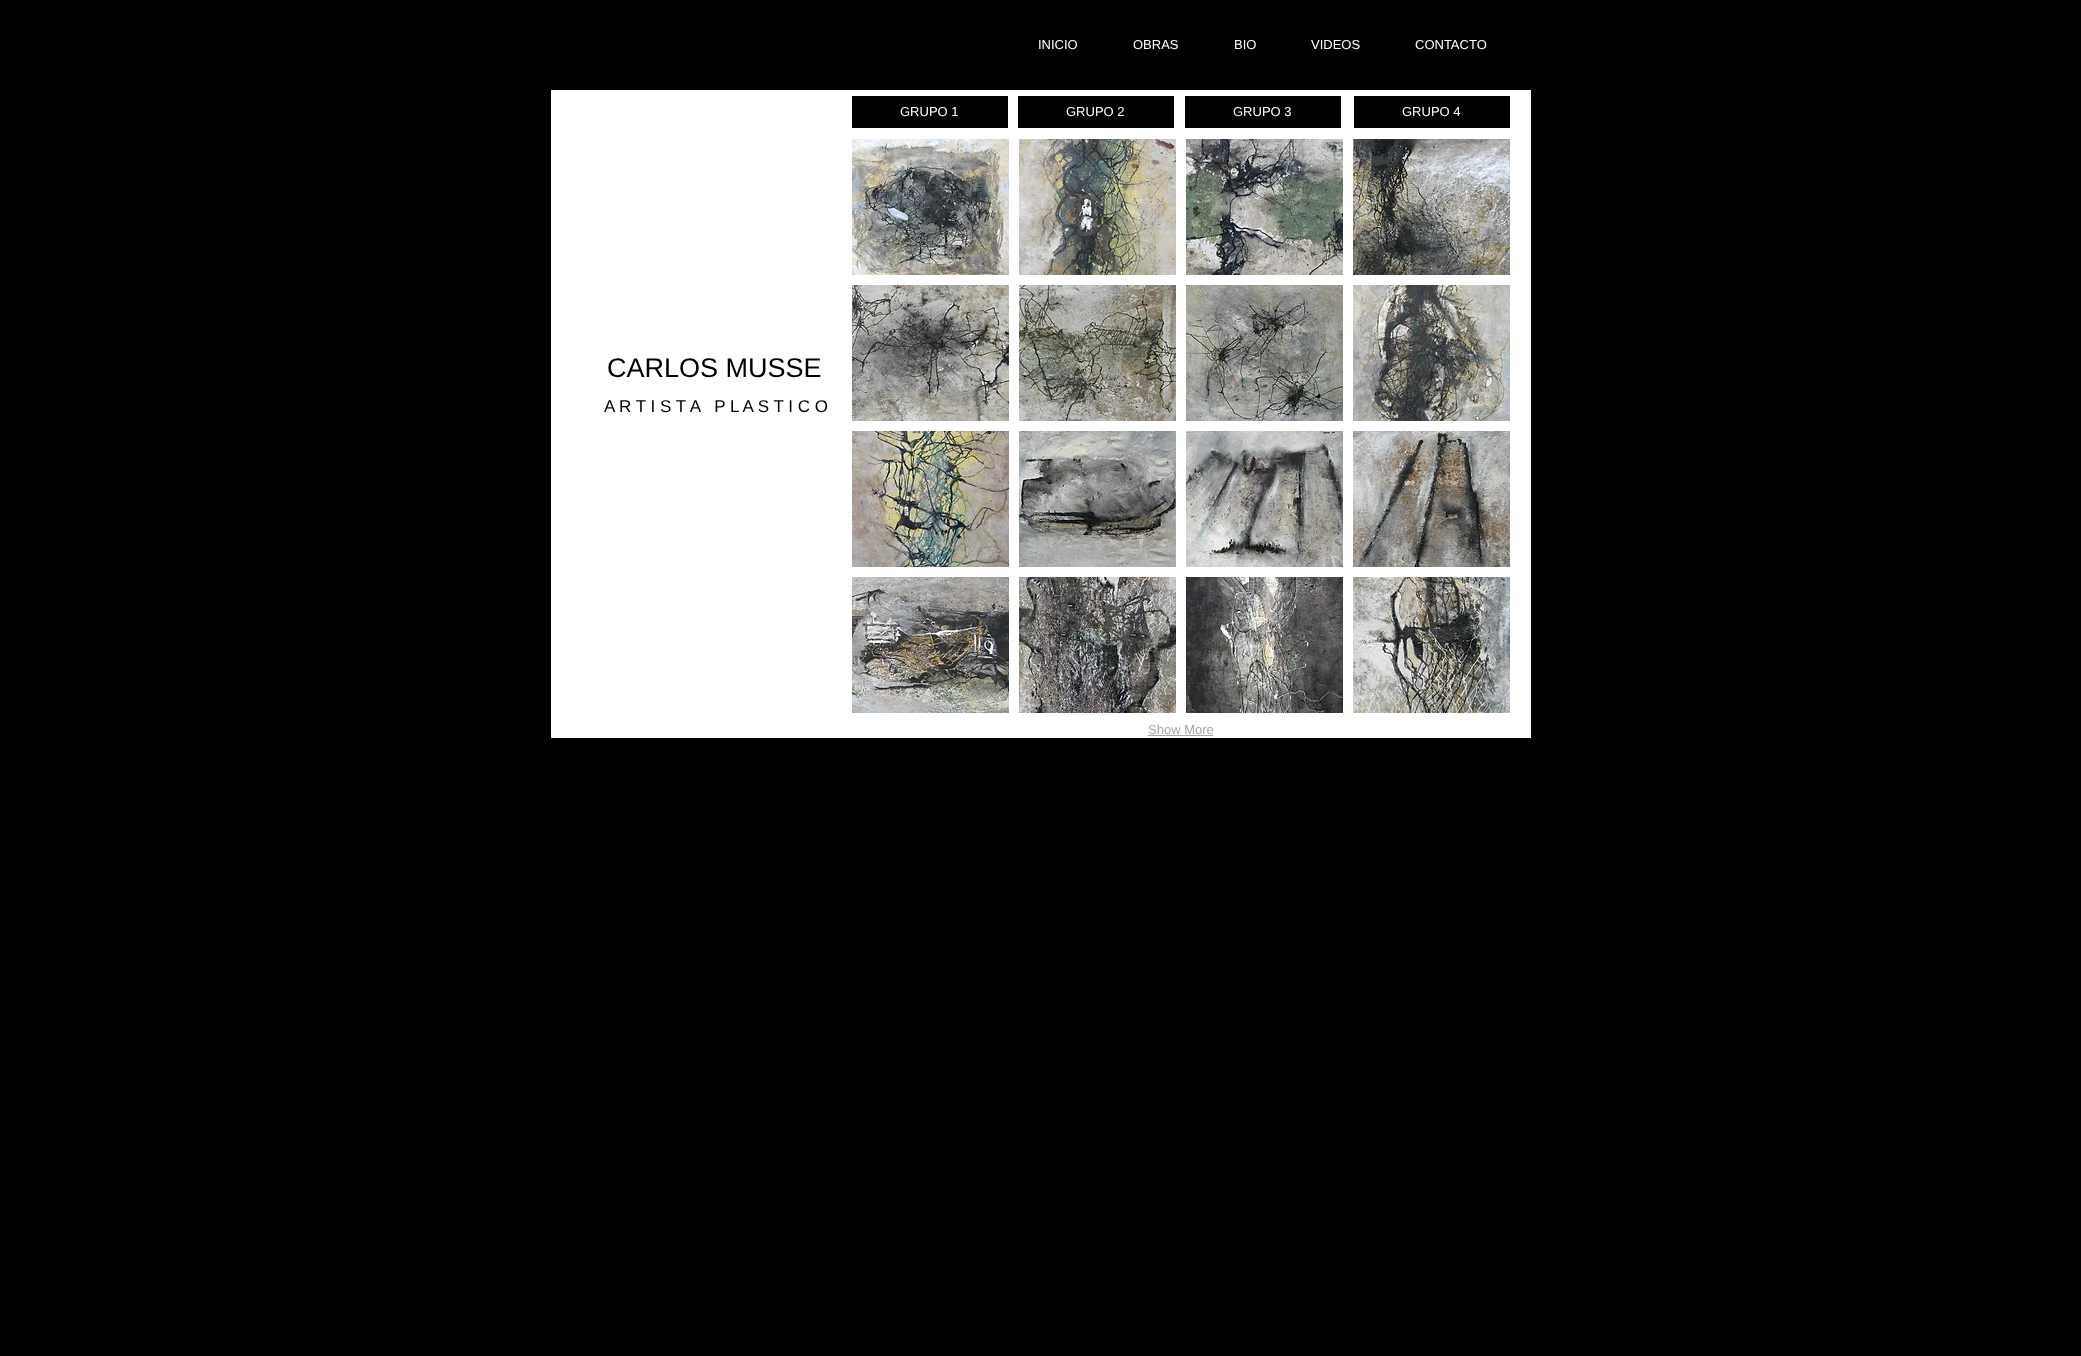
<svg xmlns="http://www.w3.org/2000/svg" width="2081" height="1356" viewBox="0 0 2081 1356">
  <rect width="100%" height="100%" fill="rgb(0,0,0)"/>
  <g font-family="Liberation Sans" font-size="13" fill="rgb(255,255,255)">
    <text x="1038" y="49">INICIO</text>
    <text x="1133" y="49">OBRAS</text>
    <text x="1234" y="49">BIO</text>
    <text x="1311" y="49">VIDEOS</text>
    <text x="1415" y="49">CONTACTO</text>
  </g>
  <rect x="551" y="90" width="980" height="648" fill="rgb(255,255,255)"/>
  <rect x="852" y="96" width="156" height="32" fill="rgb(0,0,0)"/>
  <text x="900" y="116" font-family="Liberation Sans" font-size="13" fill="rgb(255,255,255)">GRUPO 1</text>
  <rect x="1018" y="96" width="156" height="32" fill="rgb(0,0,0)"/>
  <text x="1066" y="116" font-family="Liberation Sans" font-size="13" fill="rgb(255,255,255)">GRUPO 2</text>
  <rect x="1185" y="96" width="156" height="32" fill="rgb(0,0,0)"/>
  <text x="1233" y="116" font-family="Liberation Sans" font-size="13" fill="rgb(255,255,255)">GRUPO 3</text>
  <rect x="1354" y="96" width="156" height="32" fill="rgb(0,0,0)"/>
  <text x="1402" y="116" font-family="Liberation Sans" font-size="13" fill="rgb(255,255,255)">GRUPO 4</text>
  <text x="607" y="377" font-family="Liberation Sans" font-size="27" fill="rgb(0,0,0)">CARLOS MUSSE</text>
  <image x="852" y="139" width="157" height="136" href="pic1.png"/>
  <image x="1019" y="139" width="157" height="136" href="pic2.png"/>
  <image x="1186" y="139" width="157" height="136" href="pic3.png"/>
  <text x="1196" y="166" font-family="Liberation Sans" font-size="17" fill="rgb(110,110,113)">3</text>
  <image x="1353" y="139" width="157" height="136" href="pic4.png"/>
  <image x="852" y="285" width="157" height="136" href="pic5.png"/>
  <text x="862" y="312" font-family="Liberation Sans" font-size="17" fill="rgb(148,151,147)">5</text>
  <image x="1019" y="285" width="157" height="136" href="pic6.png"/>
  <image x="1186" y="285" width="157" height="136" href="pic7.png"/>
  <image x="1353" y="285" width="157" height="136" href="pic8.png"/>
  <image x="852" y="431" width="157" height="136" href="pic9.png"/>
  <image x="1019" y="431" width="157" height="136" href="pic10.png"/>
  <image x="1186" y="431" width="157" height="136" href="pic11.png"/>
  <image x="1353" y="431" width="157" height="136" href="pic12.png"/>
  <image x="852" y="577" width="157" height="136" href="pic13.png"/>
  <text x="862" y="604" font-family="Liberation Sans" font-size="17" fill="rgb(137,138,137)">13</text>
  <image x="1019" y="577" width="157" height="136" href="pic14.png"/>
  <text x="1029" y="604" font-family="Liberation Sans" font-size="17" fill="rgb(110,110,113)">14</text>
  <image x="1186" y="577" width="157" height="136" href="pic15.png"/>
  <image x="1353" y="577" width="157" height="136" href="pic16.png"/>
  <text x="1148" y="734" font-family="Liberation Sans" font-size="13" fill="rgb(165,165,165)">Show More</text>
  <rect x="1148" y="735" width="65" height="1" fill="rgb(165,165,165)"/>
  <text x="604" y="412" font-family="Liberation Sans" font-size="17" fill="rgb(0,0,0)" xml:space="preserve">A R T I S T A   P L A S T I C O</text>
</svg>
